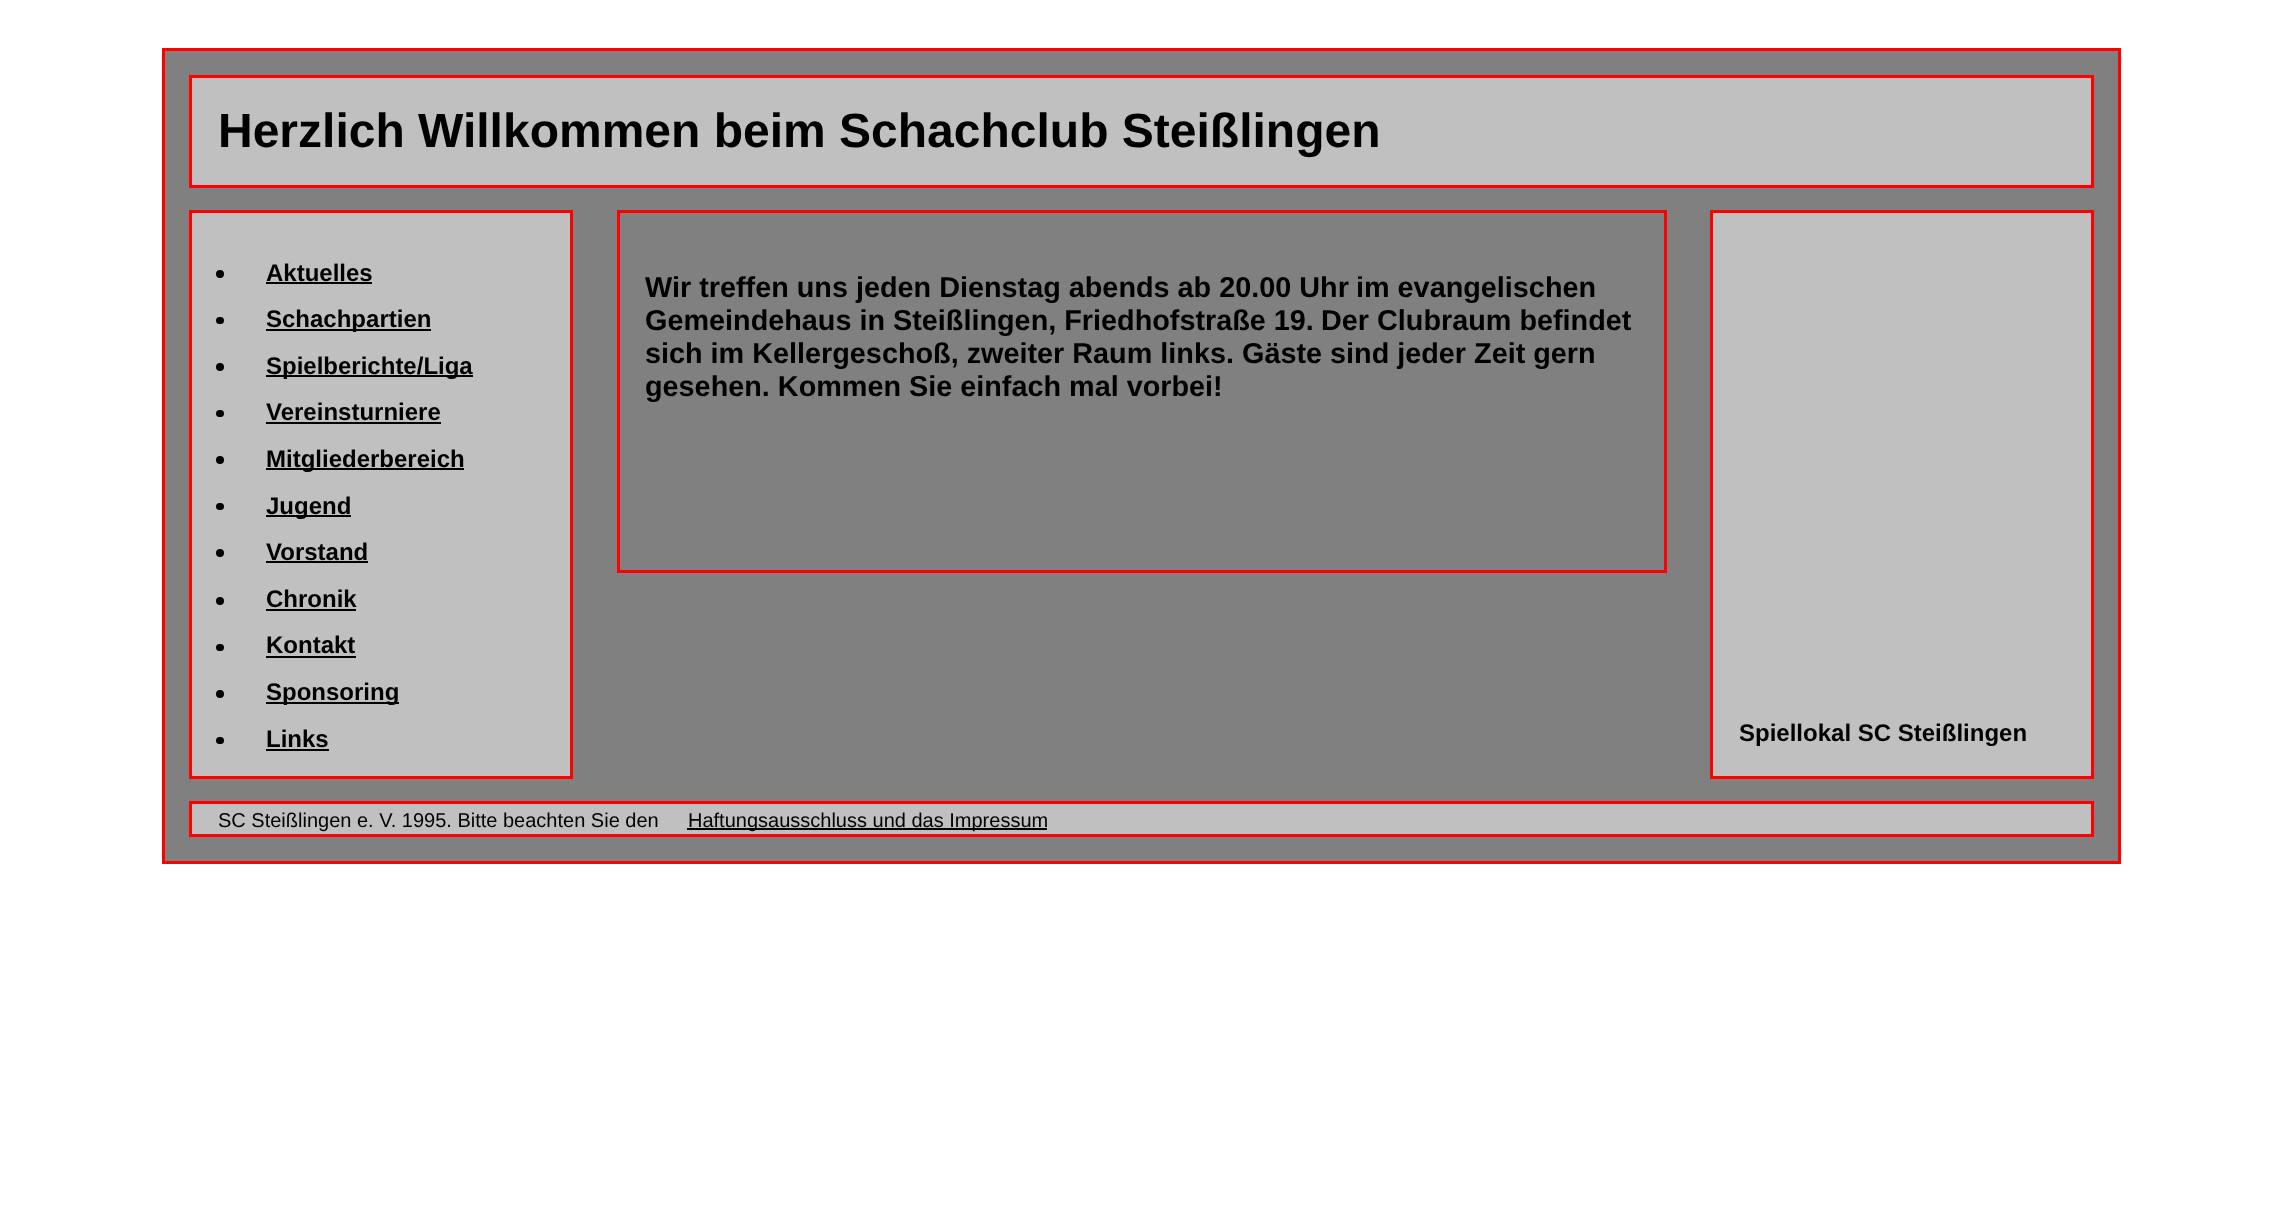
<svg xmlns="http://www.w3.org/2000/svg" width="2283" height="1228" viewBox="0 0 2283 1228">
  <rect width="100%" height="100%" fill="rgb(255,255,255)"/>
  <rect x="163.5" y="49.5" width="1956" height="813" fill="rgb(128,128,128)" stroke="rgb(255,0,0)" stroke-width="3"/>
  <rect x="190.5" y="76.5" width="1902" height="110" fill="rgb(192,192,192)" stroke="rgb(255,0,0)" stroke-width="3"/>
  <text x="218" y="147" font-family="Liberation Sans" font-size="48" font-weight="bold" fill="rgb(0,0,0)">Herzlich Willkommen beim Schachclub Steißlingen</text>
  <rect x="190.5" y="211.5" width="381" height="566" fill="rgb(192,192,192)" stroke="rgb(255,0,0)" stroke-width="3"/>
  <circle cx="220" cy="274" r="4" fill="rgb(0,0,0)"/>
  <text x="266" y="281" font-family="Liberation Sans" font-size="24" font-weight="bold" fill="rgb(0,0,0)">Aktuelles</text>
  <rect x="266" y="282" width="106" height="2" fill="rgb(0,0,0)"/>
  <rect x="216" y="317" width="8" height="7" rx="3.5" fill="rgb(0,0,0)"/>
  <rect x="266" y="329" width="165" height="2" fill="rgb(0,0,0)"/>
  <text x="266" y="327" font-family="Liberation Sans" font-size="24" font-weight="bold" fill="rgb(0,0,0)">Schachpartien</text>
  <circle cx="220" cy="367" r="4" fill="rgb(0,0,0)"/>
  <rect x="266" y="375" width="207" height="2" fill="rgb(0,0,0)"/>
  <text x="266" y="374" font-family="Liberation Sans" font-size="24" font-weight="bold" fill="rgb(0,0,0)">Spielberichte/Liga</text>
  <rect x="216" y="410" width="8" height="7" rx="3.5" fill="rgb(0,0,0)"/>
  <text x="266" y="420" font-family="Liberation Sans" font-size="24" font-weight="bold" fill="rgb(0,0,0)">Vereinsturniere</text>
  <rect x="266" y="422" width="175" height="2" fill="rgb(0,0,0)"/>
  <circle cx="220" cy="460" r="4" fill="rgb(0,0,0)"/>
  <rect x="266" y="468" width="198" height="2" fill="rgb(0,0,0)"/>
  <text x="266" y="467" font-family="Liberation Sans" font-size="24" font-weight="bold" fill="rgb(0,0,0)">Mitgliederbereich</text>
  <rect x="216" y="503" width="8" height="7" rx="3.5" fill="rgb(0,0,0)"/>
  <rect x="266" y="515" width="85" height="2" fill="rgb(0,0,0)"/>
  <text x="266" y="514" font-family="Liberation Sans" font-size="24" font-weight="bold" fill="rgb(0,0,0)">Jugend</text>
  <circle cx="220" cy="553" r="4" fill="rgb(0,0,0)"/>
  <text x="266" y="560" font-family="Liberation Sans" font-size="24" font-weight="bold" fill="rgb(0,0,0)">Vorstand</text>
  <rect x="266" y="561" width="102" height="2" fill="rgb(0,0,0)"/>
  <circle cx="220" cy="601" r="4" fill="rgb(0,0,0)"/>
  <text x="266" y="607" font-family="Liberation Sans" font-size="24" font-weight="bold" fill="rgb(0,0,0)">Chronik</text>
  <rect x="266" y="609" width="90" height="2" fill="rgb(0,0,0)"/>
  <rect x="216" y="644" width="8" height="7" rx="3.5" fill="rgb(0,0,0)"/>
  <text x="266" y="653" font-family="Liberation Sans" font-size="24" font-weight="bold" fill="rgb(0,0,0)">Kontakt</text>
  <rect x="266" y="656" width="90" height="2" fill="rgb(0,0,0)"/>
  <circle cx="220" cy="694" r="4" fill="rgb(0,0,0)"/>
  <rect x="266" y="702" width="133" height="2" fill="rgb(0,0,0)"/>
  <text x="266" y="700" font-family="Liberation Sans" font-size="24" font-weight="bold" fill="rgb(0,0,0)">Sponsoring</text>
  <rect x="216" y="737" width="8" height="7" rx="3.5" fill="rgb(0,0,0)"/>
  <text x="266" y="747" font-family="Liberation Sans" font-size="24" font-weight="bold" fill="rgb(0,0,0)">Links</text>
  <rect x="266" y="749" width="63" height="2" fill="rgb(0,0,0)"/>
  <rect x="618.5" y="211.5" width="1047" height="360" fill="none" stroke="rgb(255,0,0)" stroke-width="3"/>
  <g font-family="Liberation Sans" font-size="28.8" font-weight="bold" fill="rgb(0,0,0)">
    <text x="645" y="297">Wir treffen uns jeden Dienstag abends ab 20.00 Uhr</text>
    <text x="1356" y="297">im evangelischen</text>
    <text x="645" y="330">Gemeindehaus in Steißlingen, Friedhofstraße 19.</text>
    <text x="1321" y="330">Der Clubraum befindet</text>
    <text x="645" y="363">sich im Kellergeschoß, zweiter Raum links.</text>
    <text x="1242" y="363">Gäste sind jeder Zeit gern</text>
    <text x="645" y="396">gesehen. Kommen Sie einfach mal vorbei!</text>
  </g>
  <rect x="1711.5" y="211.5" width="381" height="566" fill="rgb(192,192,192)" stroke="rgb(255,0,0)" stroke-width="3"/>
  <text x="1739" y="741" font-family="Liberation Sans" font-size="24" font-weight="bold" fill="rgb(0,0,0)">Spiellokal SC Steißlingen</text>
  <rect x="190.5" y="802.5" width="1902" height="33" fill="rgb(192,192,192)" stroke="rgb(255,0,0)" stroke-width="3"/>
  <text x="218" y="827" font-family="Liberation Sans" font-size="20" fill="rgb(0,0,0)">SC Steißlingen e. V. 1995. Bitte beachten Sie den</text>
  <rect x="687" y="828" width="360" height="2" fill="rgb(0,0,0)"/>
  <text x="688" y="827" font-family="Liberation Sans" font-size="20" fill="rgb(0,0,0)">Haftungsausschluss und das Impressum</text>
</svg>
